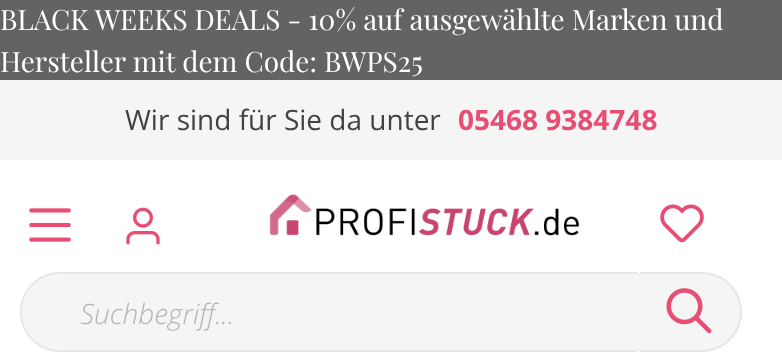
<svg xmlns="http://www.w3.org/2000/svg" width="782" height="358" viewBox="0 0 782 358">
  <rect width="100%" height="100%" fill="rgb(255,255,255)"/>
  <rect x="0" y="0" width="782" height="80" fill="rgb(99,99,99)"/>
  <g font-family="Playfair Display" font-size="28" fill="rgb(255,255,255)">
    <text>
      <tspan x="0" y="30">BLACK WEEKS DEALS - 10% auf ausgewählte Marken und</tspan>
      <tspan x="0" y="72">Hersteller mit dem Code: BWPS25</tspan>
    </text>
  </g>
  <rect x="0" y="80" width="782" height="80" fill="rgb(245,245,245)"/>
  <text x="125" y="130" font-family="Open Sans" font-size="28" fill="rgb(66,66,66)">Wir sind für Sie da unter</text>
  <text x="458" y="130" font-family="Open Sans" font-size="28" font-weight="bold" fill="rgb(231,78,116)">05468 9384748</text>
  <image x="29" y="208" width="42" height="34" href="pic1.png"/>
  <image x="126" y="207" width="34" height="38" href="pic2.png"/>
  <image x="269" y="194" width="311" height="42" href="pic3.png"/>
  <image x="660" y="204" width="44" height="39" href="pic4.png"/>
  <path d="M60 274H638V350H60C39 350 22 333 22 312C22 291 39 274 60 274Z" fill="rgb(245,245,245)"/>
  <path d="M60 272H638V352H60C38 352 20 334 20 312C20 290 38 272 60 272ZM60 274H638V350H60C39 350 22 333 22 312C22 291 39 274 60 274Z" fill="rgb(230,230,230)" fill-rule="evenodd"/>
  <text x="80" y="324" font-family="Open Sans" font-size="28" font-weight="300" font-style="italic" fill="rgb(180,180,180)">Suchbegriff...</text>
  <path d="M643 272H702C724 272 742 290 742 312C742 334 724 352 702 352H643C640 352 638 350 638 347V277C638 274 640 272 643 272Z" fill="rgb(245,245,245)"/>
  <path d="M643 272H702C724 272 742 290 742 312C742 334 724 352 702 352H643C640 352 638 350 638 347V277C638 274 640 272 643 272ZM643 274H702C723 274 740 291 740 312C740 333 723 350 702 350H643C640 350 638 349 638 347V277C638 275 640 274 643 274Z" fill="rgb(230,230,230)" fill-rule="evenodd"/>
  <image x="666" y="288" width="46" height="46" href="pic5.png"/>
</svg>
